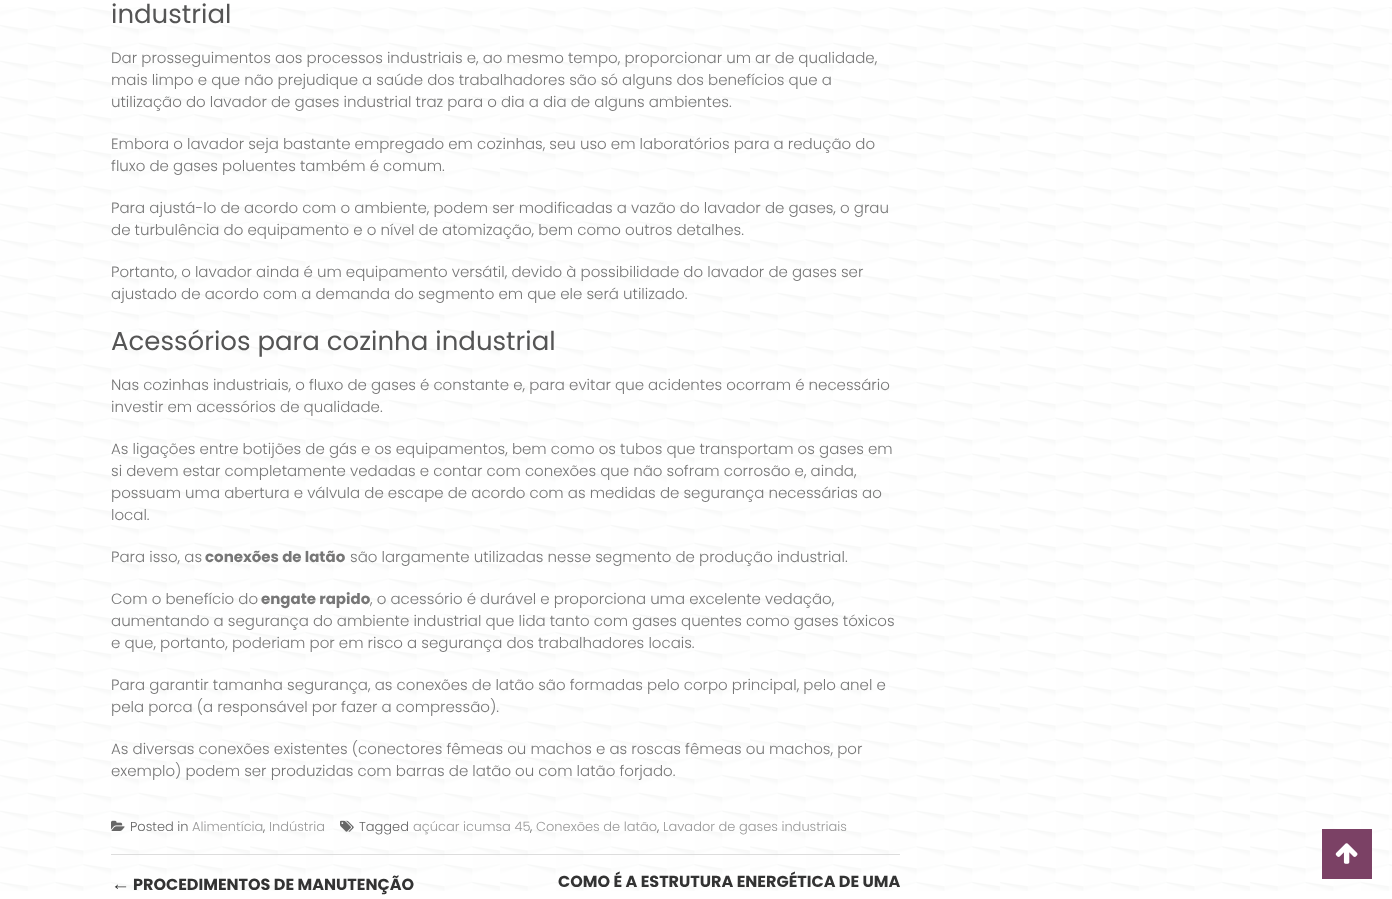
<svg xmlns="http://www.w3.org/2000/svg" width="1392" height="899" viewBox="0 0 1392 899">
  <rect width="100%" height="100%" fill="rgb(255,255,255)"/>
  <image x="0" y="7" width="1392" height="884" href="pic1.png"/>
  <text x="111" y="23" font-family="Poppins" font-size="26" fill="rgb(85,85,85)">industrial</text>
  <g font-family="Poppins" font-size="15" font-weight="300" fill="rgb(119,119,119)">
    <text>
      <tspan x="111" y="63">Dar prosseguimentos aos processos industriais e, ao mesmo tempo, proporcionar um ar de qualidade,</tspan>
      <tspan x="111" y="85">mais limpo e que não prejudique a saúde dos trabalhadores são só alguns dos benefícios que a</tspan>
      <tspan x="111" y="107">utilização do lavador de gases industrial traz para o dia a dia de alguns ambientes.</tspan>
    </text>
    <text>
      <tspan x="111" y="149">Embora o lavador seja bastante empregado em cozinhas, seu uso em laboratórios para a redução do</tspan>
      <tspan x="111" y="171">fluxo de gases poluentes também é comum.</tspan>
    </text>
    <text>
      <tspan x="111" y="213">Para ajustá-lo de acordo com o ambiente, podem ser modificadas a vazão do lavador de gases, o grau</tspan>
      <tspan x="111" y="235">de turbulência do equipamento e o nível de atomização, bem como outros detalhes.</tspan>
    </text>
    <text>
      <tspan x="111" y="277">Portanto, o lavador ainda é um equipamento versátil, devido à possibilidade do lavador de gases ser</tspan>
      <tspan x="111" y="299">ajustado de acordo com a demanda do segmento em que ele será utilizado.</tspan>
    </text>
  </g>
  <text x="111" y="350" font-family="Poppins" font-size="26" fill="rgb(85,85,85)">Acessórios para cozinha industrial</text>
  <g font-family="Poppins" font-size="15" font-weight="300" fill="rgb(119,119,119)">
    <text>
      <tspan x="111" y="390">Nas cozinhas industriais, o fluxo de gases é constante e, para evitar que acidentes ocorram é necessário</tspan>
      <tspan x="111" y="412">investir em acessórios de qualidade.</tspan>
    </text>
    <text>
      <tspan x="111" y="454">As ligações entre botijões de gás e os equipamentos, bem como os tubos que transportam os gases em</tspan>
      <tspan x="111" y="476">si devem estar completamente vedadas e contar com conexões que não sofram corrosão e, ainda,</tspan>
      <tspan x="111" y="498">possuam uma abertura e válvula de escape de acordo com as medidas de segurança necessárias ao</tspan>
      <tspan x="111" y="520">local.</tspan>
    </text>
    <text x="111" y="562">Para isso, as</text>
  </g>
  <text x="205" y="562" font-family="Poppins" font-size="15" font-weight="bold" fill="rgb(119,119,119)">conexões de latão</text>
  <g font-family="Poppins" font-size="15" font-weight="300" fill="rgb(119,119,119)">
    <text x="350" y="562">são largamente utilizadas nesse segmento de produção industrial.</text>
    <text x="111" y="604">Com o benefício do</text>
  </g>
  <text x="261" y="604" font-family="Poppins" font-size="15" font-weight="bold" fill="rgb(119,119,119)">engate rapido</text>
  <g font-family="Poppins" font-size="15" font-weight="300" fill="rgb(119,119,119)">
    <text x="370" y="604">, o acessório é durável e proporciona uma excelente vedação,</text>
    <text>
      <tspan x="111" y="626">aumentando a segurança do ambiente industrial que lida tanto com gases quentes como gases tóxicos</tspan>
      <tspan x="111" y="648">e que, portanto, poderiam por em risco a segurança dos trabalhadores locais.</tspan>
    </text>
    <text>
      <tspan x="111" y="690">Para garantir tamanha segurança, as conexões de latão são formadas pelo corpo principal, pelo anel e</tspan>
      <tspan x="111" y="712">pela porca (a responsável por fazer a compressão).</tspan>
    </text>
    <text>
      <tspan x="111" y="754">As diversas conexões existentes (conectores fêmeas ou machos e as roscas fêmeas ou machos, por</tspan>
      <tspan x="111" y="776">exemplo) podem ser produzidas com barras de latão ou com latão forjado.</tspan>
    </text>
  </g>
  <image x="111" y="820" width="14" height="11" href="pic2.png"/>
  <text x="130" y="831" font-family="Poppins" font-size="13" font-weight="300" fill="rgb(102,102,102)">Posted in</text>
  <text x="192" y="831" font-family="Poppins" font-size="13" font-weight="300" fill="rgb(153,153,153)">Alimentícia</text>
  <text x="263" y="831" font-family="Poppins" font-size="13" font-weight="300" fill="rgb(102,102,102)">,</text>
  <text x="269" y="831" font-family="Poppins" font-size="13" font-weight="300" fill="rgb(153,153,153)">Indústria</text>
  <image x="340" y="820" width="14" height="12" href="pic3.png"/>
  <text x="359" y="831" font-family="Poppins" font-size="13" font-weight="300" fill="rgb(102,102,102)">Tagged</text>
  <text x="413" y="831" font-family="Poppins" font-size="13" font-weight="300" fill="rgb(153,153,153)">açúcar icumsa 45</text>
  <text x="530" y="831" font-family="Poppins" font-size="13" font-weight="300" fill="rgb(102,102,102)">,</text>
  <text x="536" y="831" font-family="Poppins" font-size="13" font-weight="300" fill="rgb(153,153,153)">Conexões de latão</text>
  <text x="657" y="831" font-family="Poppins" font-size="13" font-weight="300" fill="rgb(102,102,102)">,</text>
  <text x="663" y="831" font-family="Poppins" font-size="13" font-weight="300" fill="rgb(153,153,153)">Lavador de gases industriais</text>
  <rect x="111" y="854" width="789" height="1" fill="rgb(221,221,221)"/>
  <text x="111" y="890" font-family="Liberation Sans" font-size="19" font-weight="bold" fill="rgb(51,51,51)">←</text>
  <g font-family="Poppins" font-size="16" font-weight="bold" fill="rgb(51,51,51)">
    <text x="133" y="890">PROCEDIMENTOS DE MANUTENÇÃO</text>
    <text x="558" y="887">COMO É A ESTRUTURA ENERGÉTICA DE UMA</text>
  </g>
  <rect x="1322" y="829" width="50" height="50" fill="rgb(123,65,101)"/>
  <image x="1335" y="843" width="23" height="21" href="pic4.png"/>
</svg>
